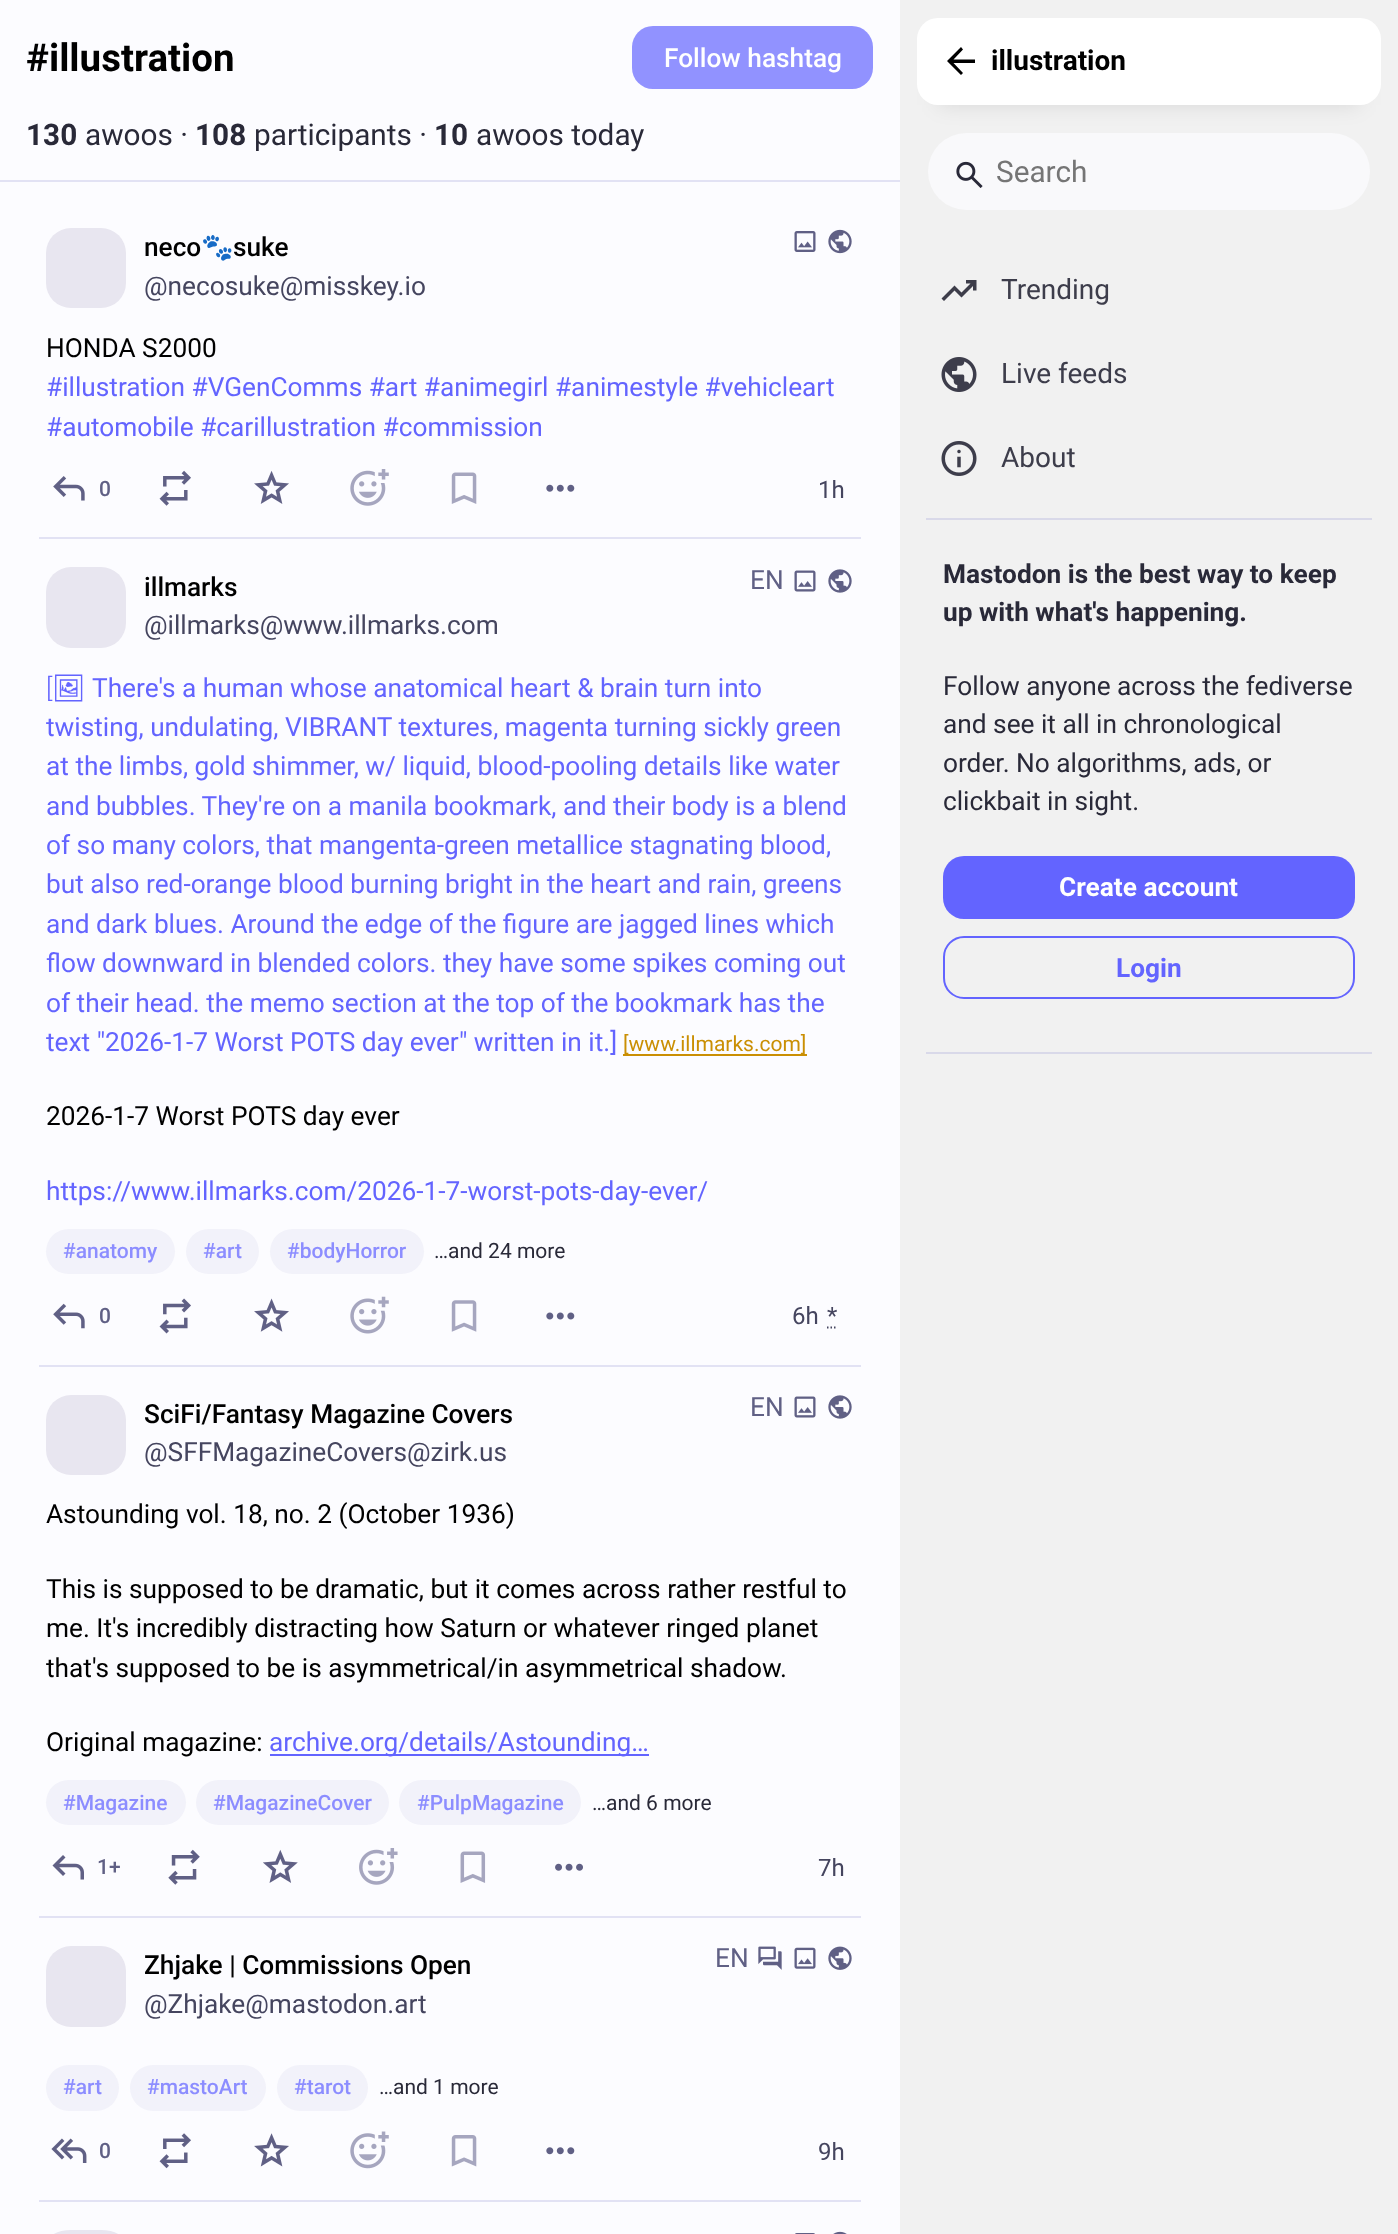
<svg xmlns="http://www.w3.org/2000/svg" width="1398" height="2234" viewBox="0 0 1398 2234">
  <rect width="100%" height="100%" fill="rgb(241,241,241)"/>
  <rect x="0" y="0" width="900" height="2234" fill="rgb(252,252,255)"/>
  <rect x="0" y="180" width="900" height="2" fill="rgb(226,226,244)"/>
  <text x="26" y="71" font-family="Roboto" font-size="38.5" font-weight="bold" fill="rgb(0,0,0)">#illustration</text>
  <rect x="632" y="26" width="241" height="63" rx="21" fill="rgb(145,146,255)"/>
  <text x="664" y="67" font-family="Roboto" font-size="26.25" font-weight="500" fill="rgb(255,255,255)">Follow hashtag</text>
  <text x="26" y="145" font-family="Roboto" font-size="29.75" font-weight="bold" fill="rgb(41,41,56)">130</text>
  <text x="85" y="145" font-family="Roboto" font-size="29.75" fill="rgb(41,41,56)">awoos ·</text>
  <text x="195" y="145" font-family="Roboto" font-size="29.75" font-weight="bold" fill="rgb(41,41,56)">108</text>
  <text x="254" y="145" font-family="Roboto" font-size="29.75" fill="rgb(41,41,56)">participants ·</text>
  <text x="434" y="145" font-family="Roboto" font-size="29.75" font-weight="bold" fill="rgb(41,41,56)">10</text>
  <text x="476" y="145" font-family="Roboto" font-size="29.75" fill="rgb(41,41,56)">awoos today</text>
  <rect x="46" y="228" width="80" height="80" rx="25" fill="rgb(232,230,240)"/>
  <text x="144" y="256" font-family="Roboto" font-size="26.25" font-weight="500" fill="rgb(0,0,0)">neco</text>
  <text x="201" y="256" font-family="Noto Color Emoji" font-size="26.25" fill="rgb(0,0,0)">🐾</text>
  <text x="233" y="256" font-family="Roboto" font-size="26.25" font-weight="500" fill="rgb(0,0,0)">suke</text>
  <text x="144" y="295" font-family="Roboto" font-size="26.25" fill="rgb(69,69,95)">@necosuke@misskey.io</text>
  <image x="794" y="231" width="22" height="21" href="pic1.png"/>
  <image x="828" y="229" width="24" height="25" href="pic2.png"/>
  <text x="46" y="357" font-family="Roboto" font-size="26.25" fill="rgb(0,0,0)">HONDA S2000</text>
  <g font-family="Roboto" font-size="26.25" fill="rgb(99,100,255)">
    <text>
      <tspan x="46" y="396">#illustration #VGenComms #art #animegirl #animestyle #vehicleart</tspan>
      <tspan x="46" y="436">#automobile #carillustration #commission</tspan>
    </text>
  </g>
  <image x="53" y="476" width="32" height="25" href="pic3.png"/>
  <text x="99" y="496" font-family="Roboto" font-size="21" font-weight="500" fill="rgb(96,96,133)">0</text>
  <image x="159" y="470" width="32" height="36" href="pic4.png"/>
  <image x="254" y="470" width="35" height="34" href="pic5.png"/>
  <image x="350" y="469" width="39" height="37" href="pic6.png"/>
  <image x="451" y="472" width="26" height="32" href="pic7.png"/>
  <image x="546" y="484" width="29" height="8" href="pic8.png"/>
  <text x="818" y="498" font-family="Roboto" font-size="24" fill="rgb(69,69,95)">1h</text>
  <rect x="39" y="537" width="822" height="2" fill="rgb(226,226,244)"/>
  <rect x="46" y="567" width="80" height="81" rx="25" fill="rgb(232,230,240)"/>
  <text x="144" y="596" font-family="Roboto" font-size="26.25" font-weight="500" fill="rgb(0,0,0)">illmarks</text>
  <text x="144" y="634" font-family="Roboto" font-size="26.25" fill="rgb(69,69,95)">@illmarks@www.illmarks.com</text>
  <text x="750" y="589" font-family="Roboto" font-size="26.25" fill="rgb(96,96,133)">EN</text>
  <image x="794" y="570" width="22" height="22" href="pic9.png"/>
  <image x="828" y="569" width="24" height="24" href="pic10.png"/>
  <text x="46" y="697" font-family="Roboto" font-size="26.25" font-weight="300" fill="rgb(99,100,255)">[</text>
  <text x="52" y="697" font-family="Noto Emoji" font-size="26.25" font-weight="600" fill="rgb(99,100,255)">🖼</text>
  <g font-family="Roboto" font-size="26.25" fill="rgb(99,100,255)">
    <text x="92" y="697">There's a human whose anatomical heart &amp; brain turn into</text>
    <text>
      <tspan x="46" y="736">twisting, undulating, VIBRANT textures, magenta turning sickly green</tspan>
      <tspan x="46" y="775">at the limbs, gold shimmer, w/ liquid, blood-pooling details like water</tspan>
      <tspan x="46" y="815">and bubbles. They're on a manila bookmark, and their body is a blend</tspan>
      <tspan x="46" y="854">of so many colors, that mangenta-green metallice stagnating blood,</tspan>
      <tspan x="46" y="893">but also red-orange blood burning bright in the heart and rain, greens</tspan>
      <tspan x="46" y="933">and dark blues. Around the edge of the figure are jagged lines which</tspan>
      <tspan x="46" y="972">flow downward in blended colors. they have some spikes coming out</tspan>
      <tspan x="46" y="1012">of their head. the memo section at the top of the bookmark has the</tspan>
      <tspan x="46" y="1051">text "2026-1-7 Worst POTS day ever" written in it.]</tspan>
    </text>
  </g>
  <rect x="623" y="1054" width="184" height="2" fill="rgb(202,143,4)"/>
  <text x="623" y="1051" font-family="Roboto" font-size="21" fill="rgb(202,143,4)">[www.illmarks.com]</text>
  <text x="46" y="1125" font-family="Roboto" font-size="26.25" fill="rgb(0,0,0)">2026-1-7 Worst POTS day ever</text>
  <text x="46" y="1200" font-family="Roboto" font-size="26.25" fill="rgb(99,100,255)">https://www.illmarks.com/2026-1-7-worst-pots-day-ever/</text>
  <rect x="46" y="1229" width="129" height="45" rx="22.5" fill="rgb(242,242,250)"/>
  <text x="63" y="1258" font-family="Roboto" font-size="21" font-weight="500" fill="rgb(140,141,255)">#anatomy</text>
  <rect x="186" y="1229" width="73" height="45" rx="22.5" fill="rgb(242,242,250)"/>
  <text x="203" y="1258" font-family="Roboto" font-size="21" font-weight="500" fill="rgb(140,141,255)">#art</text>
  <rect x="270" y="1229" width="154" height="45" rx="22.5" fill="rgb(242,242,250)"/>
  <text x="287" y="1258" font-family="Roboto" font-size="21" font-weight="500" fill="rgb(140,141,255)">#bodyHorror</text>
  <text x="434" y="1258" font-family="Roboto" font-size="21" fill="rgb(41,41,56)">…and 24 more</text>
  <image x="53" y="1303" width="32" height="26" href="pic11.png"/>
  <text x="99" y="1323" font-family="Roboto" font-size="21" font-weight="500" fill="rgb(96,96,133)">0</text>
  <image x="159" y="1298" width="32" height="36" href="pic12.png"/>
  <image x="254" y="1298" width="35" height="34" href="pic13.png"/>
  <image x="350" y="1296" width="39" height="38" href="pic14.png"/>
  <image x="451" y="1300" width="26" height="32" href="pic15.png"/>
  <image x="546" y="1312" width="29" height="8" href="pic16.png"/>
  <g font-family="Roboto" font-size="24" fill="rgb(69,69,95)">
    <text x="792" y="1324">6h</text>
    <text x="827" y="1324">*</text>
  </g>
  <path d="M827 1327.5H828.5M830.5 1327.5H832M834 1327.5H835.5M837.5 1327.5H837.5" fill="none" stroke="rgb(69,69,95)" stroke-width="1.8"/>
  <rect x="39" y="1365" width="822" height="2" fill="rgb(226,226,244)"/>
  <rect x="46" y="1395" width="80" height="80" rx="25" fill="rgb(232,230,240)"/>
  <text x="144" y="1423" font-family="Roboto" font-size="26.25" font-weight="500" fill="rgb(0,0,0)">SciFi/Fantasy Magazine Covers</text>
  <text x="144" y="1461" font-family="Roboto" font-size="26.25" fill="rgb(69,69,95)">@SFFMagazineCovers@zirk.us</text>
  <text x="750" y="1416" font-family="Roboto" font-size="26.25" fill="rgb(96,96,133)">EN</text>
  <image x="794" y="1396" width="22" height="22" href="pic9.png"/>
  <image x="828" y="1395" width="24" height="24" href="pic10.png"/>
  <g font-family="Roboto" font-size="26.25" fill="rgb(0,0,0)">
    <text x="46" y="1523">Astounding vol. 18, no. 2 (October 1936)</text>
    <text>
      <tspan x="46" y="1598">This is supposed to be dramatic, but it comes across rather restful to</tspan>
      <tspan x="46" y="1637">me. It's incredibly distracting how Saturn or whatever ringed planet</tspan>
      <tspan x="46" y="1677">that's supposed to be is asymmetrical/in asymmetrical shadow.</tspan>
    </text>
    <text x="46" y="1751">Original magazine:</text>
  </g>
  <rect x="270" y="1754" width="379" height="2" fill="rgb(99,100,255)"/>
  <text x="269" y="1751" font-family="Roboto" font-size="26.25" fill="rgb(99,100,255)">archive.org/details/Astounding…</text>
  <rect x="46" y="1780" width="140" height="45" rx="22.5" fill="rgb(242,242,250)"/>
  <text x="63" y="1810" font-family="Roboto" font-size="21" font-weight="500" fill="rgb(140,141,255)">#Magazine</text>
  <rect x="196" y="1780" width="193" height="45" rx="22.5" fill="rgb(242,242,250)"/>
  <text x="213" y="1810" font-family="Roboto" font-size="21" font-weight="500" fill="rgb(140,141,255)">#MagazineCover</text>
  <rect x="399" y="1780" width="182" height="45" rx="22.5" fill="rgb(242,242,250)"/>
  <text x="417" y="1810" font-family="Roboto" font-size="21" font-weight="500" fill="rgb(140,141,255)">#PulpMagazine</text>
  <text x="592" y="1810" font-family="Roboto" font-size="21" fill="rgb(41,41,56)">…and 6 more</text>
  <image x="52" y="1855" width="32" height="25" href="pic17.png"/>
  <text x="97" y="1874" font-family="Roboto" font-size="21" font-weight="500" fill="rgb(96,96,133)">1+</text>
  <image x="168" y="1849" width="32" height="36" href="pic18.png"/>
  <image x="263" y="1849" width="35" height="34" href="pic19.png"/>
  <image x="359" y="1848" width="39" height="37" href="pic20.png"/>
  <image x="460" y="1851" width="26" height="32" href="pic21.png"/>
  <image x="555" y="1863" width="28" height="8" href="pic22.png"/>
  <text x="818" y="1876" font-family="Roboto" font-size="24" fill="rgb(69,69,95)">7h</text>
  <rect x="39" y="1916" width="822" height="2" fill="rgb(226,226,244)"/>
  <rect x="46" y="1946" width="80" height="81" rx="25" fill="rgb(232,230,240)"/>
  <text x="144" y="1974" font-family="Roboto" font-size="26.25" font-weight="500" fill="rgb(0,0,0)">Zhjake | Commissions Open</text>
  <text x="144" y="2013" font-family="Roboto" font-size="26.25" fill="rgb(69,69,95)">@Zhjake@mastodon.art</text>
  <text x="715" y="1967" font-family="Roboto" font-size="26.25" fill="rgb(96,96,133)">EN</text>
  <image x="758" y="1946" width="24" height="24" href="pic23.png"/>
  <image x="794" y="1947" width="22" height="22" href="pic24.png"/>
  <image x="828" y="1946" width="24" height="24" href="pic25.png"/>
  <rect x="46" y="2065" width="73" height="46" rx="23" fill="rgb(242,242,250)"/>
  <text x="63" y="2094" font-family="Roboto" font-size="21" font-weight="500" fill="rgb(140,141,255)">#art</text>
  <rect x="130" y="2065" width="136" height="46" rx="23" fill="rgb(242,242,250)"/>
  <text x="147" y="2094" font-family="Roboto" font-size="21" font-weight="500" fill="rgb(140,141,255)">#mastoArt</text>
  <rect x="277" y="2065" width="91" height="46" rx="23" fill="rgb(242,242,250)"/>
  <text x="294" y="2094" font-family="Roboto" font-size="21" font-weight="500" fill="rgb(140,141,255)">#tarot</text>
  <text x="379" y="2094" font-family="Roboto" font-size="21" fill="rgb(41,41,56)">…and 1 more</text>
  <image x="51" y="2138" width="36" height="25" href="pic26.png"/>
  <text x="99" y="2158" font-family="Roboto" font-size="21" font-weight="500" fill="rgb(96,96,133)">0</text>
  <image x="159" y="2133" width="32" height="36" href="pic27.png"/>
  <image x="254" y="2133" width="35" height="34" href="pic28.png"/>
  <image x="350" y="2131" width="39" height="38" href="pic29.png"/>
  <image x="451" y="2135" width="26" height="32" href="pic30.png"/>
  <image x="546" y="2147" width="29" height="8" href="pic31.png"/>
  <text x="818" y="2160" font-family="Roboto" font-size="24" fill="rgb(69,69,95)">9h</text>
  <rect x="39" y="2200" width="822" height="2" fill="rgb(226,226,244)"/>
  <rect x="46" y="2230" width="80" height="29" rx="25" fill="rgb(232,230,240)"/>
  <image x="795" y="2233" width="20" height="1" href="pic32.png"/>
  <image x="833" y="2231" width="14" height="3" href="pic33.png"/>
  <rect x="928" y="133" width="442" height="77" rx="38.5" fill="rgb(249,249,251)"/>
  <rect x="938" y="60" width="422" height="45" fill="rgba(0,0,0,0.1)" filter="blur(10.5px)"/>
  <rect x="917" y="18" width="464" height="87" rx="21" fill="rgb(255,255,255)"/>
  <path d="M953.5 63L963 73L961 75L947 61L961 47L963 49.5L953.5 59.5H975V63Z" fill="rgb(0,0,0)"/>
  <text x="991" y="70" font-family="Roboto" font-size="28" font-weight="bold" fill="rgb(0,0,0)">illustration</text>
  <image x="956" y="161" width="27" height="27" href="pic34.png"/>
  <text x="996" y="182" font-family="Roboto" font-size="29.75" fill="rgb(117,117,117)">Search</text>
  <path d="M944 301L941.5 298.5L954.5 285.5L961.5 292.5L970.5 283.5H966V280H976.5V290.5H973V286L961.5 297.5L954.5 290.5Z" fill="rgb(61,61,74)"/>
  <text x="1001" y="299" font-family="Roboto" font-size="28" fill="rgb(61,61,75)">Trending</text>
  <image x="941" y="357" width="36" height="35" href="pic35.png"/>
  <text x="1001" y="383" font-family="Roboto" font-size="28" fill="rgb(61,61,75)">Live feeds</text>
  <image x="941" y="441" width="36" height="35" href="pic36.png"/>
  <text x="1001" y="467" font-family="Roboto" font-size="28" fill="rgb(61,61,75)">About</text>
  <rect x="926" y="518" width="446" height="2" fill="rgb(217,217,233)"/>
  <rect x="926" y="1052" width="446" height="2" fill="rgb(217,217,233)"/>
  <g font-family="Roboto" font-size="26.25" font-weight="bold" fill="rgb(41,41,56)">
    <text>
      <tspan x="943" y="583">Mastodon is the best way to keep</tspan>
      <tspan x="943" y="621">up with what's happening.</tspan>
    </text>
  </g>
  <g font-family="Roboto" font-size="26.25" fill="rgb(41,41,56)">
    <text>
      <tspan x="943" y="695">Follow anyone across the fediverse</tspan>
      <tspan x="943" y="733">and see it all in chronological</tspan>
      <tspan x="943" y="772">order. No algorithms, ads, or</tspan>
      <tspan x="943" y="810">clickbait in sight.</tspan>
    </text>
  </g>
  <rect x="943" y="856" width="412" height="63" rx="21" fill="rgb(99,100,255)"/>
  <text x="1059" y="896" font-family="Roboto" font-size="26.25" font-weight="bold" fill="rgb(255,255,255)">Create account</text>
  <rect x="944" y="937" width="410" height="61" rx="20" fill="none" stroke="rgb(99,100,255)" stroke-width="2"/>
  <text x="1116" y="977" font-family="Roboto" font-size="26.25" font-weight="bold" fill="rgb(99,100,255)">Login</text>
</svg>
